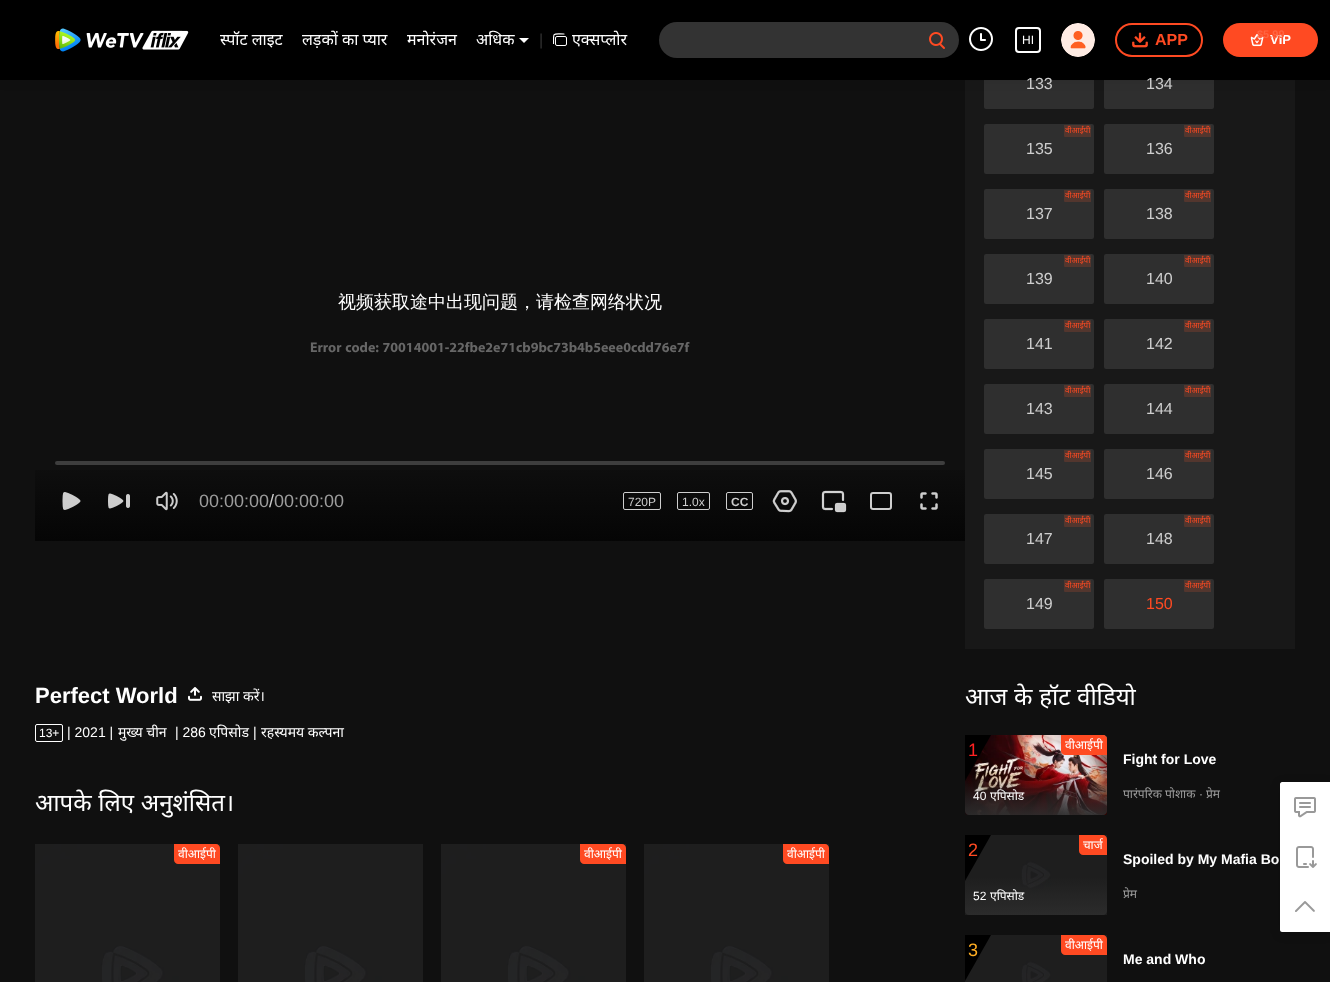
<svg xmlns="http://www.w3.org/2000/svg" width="1330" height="982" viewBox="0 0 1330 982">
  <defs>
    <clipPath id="clip1"><rect x="553" y="33" width="14" height="14"/></clipPath>
    <linearGradient id="g1" gradientUnits="userSpaceOnUse" x1="500" y1="441" x2="500" y2="541"><stop offset="0" stop-color="rgb(17,17,17)"/><stop offset="1" stop-color="rgb(5,5,5)"/></linearGradient>
    <linearGradient id="g2" gradientUnits="userSpaceOnUse" x1="1036" y1="815" x2="1036" y2="777"><stop offset="0" stop-color="rgb(45,45,45)" stop-opacity="0.9"/><stop offset="1" stop-color="rgb(45,45,45)" stop-opacity="0"/></linearGradient>
    <linearGradient id="g3" gradientUnits="userSpaceOnUse" x1="1036" y1="915" x2="1036" y2="877"><stop offset="0" stop-color="rgb(45,45,45)" stop-opacity="0.9"/><stop offset="1" stop-color="rgb(45,45,45)" stop-opacity="0"/></linearGradient>
    <clipPath id="clip2"><rect x="1123" y="886" width="156" height="16"/></clipPath>
    <linearGradient id="g4" gradientUnits="userSpaceOnUse" x1="1036" y1="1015" x2="1036" y2="977"><stop offset="0" stop-color="rgb(45,45,45)" stop-opacity="0.9"/><stop offset="1" stop-color="rgb(45,45,45)" stop-opacity="0"/></linearGradient>
  </defs>
  <rect width="100%" height="100%" fill="rgb(16,16,16)"/>
  <rect x="965" y="80" width="330" height="569" fill="rgb(24,24,24)"/>
  <path d="M984 80H1094V107C1094 108 1093 109 1092 109H986C985 109 984 108 984 107Z" fill="rgb(47,47,47)"/>
  <path d="M1104 80H1214V107C1214 108 1213 109 1212 109H1106C1105 109 1104 108 1104 107Z" fill="rgb(47,47,47)"/>
  <rect x="0" y="1" width="1330" height="80" fill="rgba(0,0,0,0.08)" filter="blur(5.5px)"/>
  <rect x="0" y="0" width="1330" height="80" fill="rgb(0,0,0)"/>
  <image x="55" y="28" width="134" height="24" href="pic1.png"/>
  <g font-family="Noto Sans" font-size="16" fill="rgb(255,255,255)">
    <text x="220" y="45">स्पॉट लाइट</text>
    <text x="302" y="45">लड़कों का प्यार</text>
    <text x="407" y="45">मनोरंजन</text>
    <text x="476" y="45">अधिक</text>
  </g>
  <path d="M519 38H529L524 43Z" fill="rgb(255,255,255)"/>
  <text x="539" y="45" font-family="Liberation Sans" font-size="16" fill="rgb(51,51,51)">|</text>
  <rect x="555.5" y="36.5" width="11" height="9" rx="1.5" fill="none" stroke="rgb(255,255,255)"/>
  <g clip-path="url(#clip1)">
    <path d="M564 34C552.5 34 553.5 32 553.5 43.5" fill="none" stroke="rgb(255,255,255)" stroke-width="1.2" stroke-linecap="round"/>
  </g>
  <text x="572" y="45" font-family="Noto Sans" font-size="16" fill="rgb(255,255,255)">एक्सप्लोर</text>
  <rect x="659" y="22" width="300" height="36" rx="18" fill="rgb(51,51,51)"/>
  <image x="929" y="32" width="16" height="17" href="pic2.png"/>
  <image x="969" y="27" width="24" height="24" href="pic3.png"/>
  <rect x="1016" y="28" width="24" height="24" rx="3" fill="none" stroke="rgb(255,255,255)" stroke-width="2"/>
  <text x="1022" y="44" font-family="Liberation Sans" font-size="12" fill="rgb(255,255,255)">HI</text>
  <image x="1061" y="23" width="34" height="34" href="pic4.png"/>
  <rect x="1116" y="24" width="86" height="32" rx="16" fill="none" stroke="rgb(255,74,34)" stroke-width="2"/>
  <image x="1132" y="32" width="16" height="16" href="pic5.png"/>
  <text x="1155" y="45" font-family="Liberation Sans" font-size="16" font-weight="bold" fill="rgb(255,74,34)">APP</text>
  <rect x="1223" y="23" width="95" height="34" rx="17" fill="rgb(255,74,34)"/>
  <image x="1250" y="34" width="14" height="13" href="pic6.png"/>
  <text x="1270" y="44" font-family="Liberation Sans" font-size="13" font-weight="bold" fill="rgb(255,255,255)">VIP</text>
  <text x="1257" y="38" font-family="Liberation Sans" font-size="11" font-weight="bold" fill="rgb(255,100,66)">$5.99</text>
  <text x="338" y="308" font-family="WenQuanYi Zen Hei" font-size="18" font-weight="500" fill="rgb(255,255,255)">视频获取途中出现问题，请检查网络状况</text>
  <text x="310" y="352" font-family="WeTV" font-size="14" font-weight="bold" fill="rgb(102,102,102)">Error code: 70014001-22fbe2e71cb9bc73b4b5eee0cdd76e7f</text>
  <rect x="35" y="470" width="930" height="71" fill="url(#g1)"/>
  <rect x="55" y="461" width="890" height="4" rx="2" fill="rgb(62,62,62)"/>
  <image x="62" y="492" width="19" height="18" href="pic7.png"/>
  <image x="108" y="493" width="22" height="16" href="pic8.png"/>
  <image x="156" y="491" width="22" height="20" href="pic9.png"/>
  <text x="199" y="507" font-family="Liberation Sans" font-size="18" fill="rgb(157,157,157)">00:00:00</text>
  <text x="269" y="507" font-family="Liberation Sans" font-size="18" fill="rgb(206,206,206)">/</text>
  <text x="274" y="507" font-family="Liberation Sans" font-size="18" fill="rgb(157,157,157)">00:00:00</text>
  <rect x="623.5" y="492.5" width="37" height="17" rx="1.5" fill="none" stroke="rgb(206,206,206)"/>
  <text x="628" y="506" font-family="Liberation Sans" font-size="12" fill="rgb(206,206,206)">720P</text>
  <rect x="677.5" y="492.5" width="32" height="17" rx="1.5" fill="none" stroke="rgb(206,206,206)"/>
  <text x="682" y="506" font-family="Liberation Sans" font-size="12" fill="rgb(206,206,206)">1.0x</text>
  <rect x="726.5" y="492.5" width="26" height="17" rx="1.5" fill="none" stroke="rgb(206,206,206)"/>
  <text x="731" y="506" font-family="Liberation Sans" font-size="12" font-weight="bold" fill="rgb(206,206,206)">CC</text>
  <image x="772" y="490" width="25" height="23" href="pic10.png"/>
  <image x="821" y="490" width="26" height="23" href="pic11.png"/>
  <rect x="871" y="493" width="20" height="16" rx="2" fill="none" stroke="rgb(206,206,206)" stroke-width="2"/>
  <image x="920" y="492" width="18" height="18" href="pic12.png"/>
  <g font-family="Liberation Sans" font-size="16" fill="rgb(206,206,206)">
    <text x="1026" y="89">133</text>
    <text x="1146" y="89">134</text>
  </g>
  <rect x="984" y="124" width="110" height="50" rx="2" fill="rgb(47,47,47)"/>
  <path d="M1064 125H1089.5C1090.5 125 1091 125.5 1091 126.5V137H1065.5C1064.5 137 1064 136.5 1064 135.5Z" fill="rgb(83,54,46)"/>
  <text x="1065" y="133" font-family="Noto Sans" font-size="8" fill="rgb(255,74,34)">वीआईपी</text>
  <text x="1026" y="154" font-family="Liberation Sans" font-size="16" fill="rgb(206,206,206)">135</text>
  <rect x="1104" y="124" width="110" height="50" rx="2" fill="rgb(47,47,47)"/>
  <path d="M1184 125H1209.5C1210.5 125 1211 125.5 1211 126.5V137H1185.5C1184.5 137 1184 136.5 1184 135.5Z" fill="rgb(83,54,46)"/>
  <text x="1185" y="133" font-family="Noto Sans" font-size="8" fill="rgb(255,74,34)">वीआईपी</text>
  <text x="1146" y="154" font-family="Liberation Sans" font-size="16" fill="rgb(206,206,206)">136</text>
  <rect x="984" y="189" width="110" height="50" rx="2" fill="rgb(47,47,47)"/>
  <path d="M1064 190H1089.5C1090.5 190 1091 190.5 1091 191.5V202H1065.5C1064.5 202 1064 201.5 1064 200.5Z" fill="rgb(83,54,46)"/>
  <text x="1065" y="198" font-family="Noto Sans" font-size="8" fill="rgb(255,74,34)">वीआईपी</text>
  <text x="1026" y="219" font-family="Liberation Sans" font-size="16" fill="rgb(206,206,206)">137</text>
  <rect x="1104" y="189" width="110" height="50" rx="2" fill="rgb(47,47,47)"/>
  <path d="M1184 190H1209.5C1210.5 190 1211 190.5 1211 191.5V202H1185.5C1184.5 202 1184 201.5 1184 200.5Z" fill="rgb(83,54,46)"/>
  <text x="1185" y="198" font-family="Noto Sans" font-size="8" fill="rgb(255,74,34)">वीआईपी</text>
  <text x="1146" y="219" font-family="Liberation Sans" font-size="16" fill="rgb(206,206,206)">138</text>
  <rect x="984" y="254" width="110" height="50" rx="2" fill="rgb(47,47,47)"/>
  <path d="M1064 255H1089.5C1090.5 255 1091 255.5 1091 256.5V267H1065.5C1064.5 267 1064 266.5 1064 265.5Z" fill="rgb(83,54,46)"/>
  <text x="1065" y="263" font-family="Noto Sans" font-size="8" fill="rgb(255,74,34)">वीआईपी</text>
  <text x="1026" y="284" font-family="Liberation Sans" font-size="16" fill="rgb(206,206,206)">139</text>
  <rect x="1104" y="254" width="110" height="50" rx="2" fill="rgb(47,47,47)"/>
  <path d="M1184 255H1209.5C1210.5 255 1211 255.5 1211 256.5V267H1185.5C1184.5 267 1184 266.5 1184 265.5Z" fill="rgb(83,54,46)"/>
  <text x="1185" y="263" font-family="Noto Sans" font-size="8" fill="rgb(255,74,34)">वीआईपी</text>
  <text x="1146" y="284" font-family="Liberation Sans" font-size="16" fill="rgb(206,206,206)">140</text>
  <rect x="984" y="319" width="110" height="50" rx="2" fill="rgb(47,47,47)"/>
  <path d="M1064 320H1089.5C1090.5 320 1091 320.5 1091 321.5V332H1065.5C1064.5 332 1064 331.5 1064 330.5Z" fill="rgb(83,54,46)"/>
  <text x="1065" y="328" font-family="Noto Sans" font-size="8" fill="rgb(255,74,34)">वीआईपी</text>
  <text x="1026" y="349" font-family="Liberation Sans" font-size="16" fill="rgb(206,206,206)">141</text>
  <rect x="1104" y="319" width="110" height="50" rx="2" fill="rgb(47,47,47)"/>
  <path d="M1184 320H1209.5C1210.5 320 1211 320.5 1211 321.5V332H1185.5C1184.5 332 1184 331.5 1184 330.5Z" fill="rgb(83,54,46)"/>
  <text x="1185" y="328" font-family="Noto Sans" font-size="8" fill="rgb(255,74,34)">वीआईपी</text>
  <text x="1146" y="349" font-family="Liberation Sans" font-size="16" fill="rgb(206,206,206)">142</text>
  <rect x="984" y="384" width="110" height="50" rx="2" fill="rgb(47,47,47)"/>
  <path d="M1064 385H1089.5C1090.5 385 1091 385.5 1091 386.5V397H1065.5C1064.5 397 1064 396.5 1064 395.5Z" fill="rgb(83,54,46)"/>
  <text x="1065" y="393" font-family="Noto Sans" font-size="8" fill="rgb(255,74,34)">वीआईपी</text>
  <text x="1026" y="414" font-family="Liberation Sans" font-size="16" fill="rgb(206,206,206)">143</text>
  <rect x="1104" y="384" width="110" height="50" rx="2" fill="rgb(47,47,47)"/>
  <path d="M1184 385H1209.5C1210.5 385 1211 385.5 1211 386.5V397H1185.5C1184.5 397 1184 396.5 1184 395.5Z" fill="rgb(83,54,46)"/>
  <text x="1185" y="393" font-family="Noto Sans" font-size="8" fill="rgb(255,74,34)">वीआईपी</text>
  <text x="1146" y="414" font-family="Liberation Sans" font-size="16" fill="rgb(206,206,206)">144</text>
  <rect x="984" y="449" width="110" height="50" rx="2" fill="rgb(47,47,47)"/>
  <path d="M1064 450H1089.5C1090.5 450 1091 450.5 1091 451.5V462H1065.5C1064.5 462 1064 461.5 1064 460.5Z" fill="rgb(83,54,46)"/>
  <text x="1065" y="458" font-family="Noto Sans" font-size="8" fill="rgb(255,74,34)">वीआईपी</text>
  <text x="1026" y="479" font-family="Liberation Sans" font-size="16" fill="rgb(206,206,206)">145</text>
  <rect x="1104" y="449" width="110" height="50" rx="2" fill="rgb(47,47,47)"/>
  <path d="M1184 450H1209.5C1210.5 450 1211 450.5 1211 451.5V462H1185.5C1184.5 462 1184 461.5 1184 460.5Z" fill="rgb(83,54,46)"/>
  <text x="1185" y="458" font-family="Noto Sans" font-size="8" fill="rgb(255,74,34)">वीआईपी</text>
  <text x="1146" y="479" font-family="Liberation Sans" font-size="16" fill="rgb(206,206,206)">146</text>
  <rect x="984" y="514" width="110" height="50" rx="2" fill="rgb(47,47,47)"/>
  <path d="M1064 515H1089.5C1090.5 515 1091 515.5 1091 516.5V527H1065.5C1064.5 527 1064 526.5 1064 525.5Z" fill="rgb(83,54,46)"/>
  <text x="1065" y="523" font-family="Noto Sans" font-size="8" fill="rgb(255,74,34)">वीआईपी</text>
  <text x="1026" y="544" font-family="Liberation Sans" font-size="16" fill="rgb(206,206,206)">147</text>
  <rect x="1104" y="514" width="110" height="50" rx="2" fill="rgb(47,47,47)"/>
  <path d="M1184 515H1209.5C1210.5 515 1211 515.5 1211 516.5V527H1185.5C1184.5 527 1184 526.5 1184 525.5Z" fill="rgb(83,54,46)"/>
  <text x="1185" y="523" font-family="Noto Sans" font-size="8" fill="rgb(255,74,34)">वीआईपी</text>
  <text x="1146" y="544" font-family="Liberation Sans" font-size="16" fill="rgb(206,206,206)">148</text>
  <rect x="984" y="579" width="110" height="50" rx="2" fill="rgb(47,47,47)"/>
  <path d="M1064 580H1089.5C1090.5 580 1091 580.5 1091 581.5V592H1065.5C1064.5 592 1064 591.5 1064 590.5Z" fill="rgb(83,54,46)"/>
  <text x="1065" y="588" font-family="Noto Sans" font-size="8" fill="rgb(255,74,34)">वीआईपी</text>
  <text x="1026" y="609" font-family="Liberation Sans" font-size="16" fill="rgb(206,206,206)">149</text>
  <rect x="1104" y="579" width="110" height="50" rx="2" fill="rgb(47,47,47)"/>
  <path d="M1184 580H1209.5C1210.5 580 1211 580.5 1211 581.5V592H1185.5C1184.5 592 1184 591.5 1184 590.5Z" fill="rgb(83,54,46)"/>
  <text x="1185" y="588" font-family="Noto Sans" font-size="8" fill="rgb(255,74,34)">वीआईपी</text>
  <text x="1146" y="609" font-family="Liberation Sans" font-size="16" fill="rgb(255,74,34)">150</text>
  <text x="35" y="703" font-family="Liberation Sans" font-size="22" font-weight="bold" fill="rgb(255,255,255)">Perfect World</text>
  <image x="188" y="687" width="14" height="14" href="pic13.png"/>
  <text x="212" y="701" font-family="Noto Sans" font-size="14" fill="rgb(255,255,255)">साझा करें।</text>
  <rect x="35.5" y="724.5" width="27" height="17" rx="1.5" fill="none" stroke="rgb(255,255,255)"/>
  <text x="39" y="737" font-family="Liberation Sans" font-size="12" fill="rgb(255,255,255)">13+</text>
  <text x="67" y="737" font-family="Liberation Sans" font-size="14" fill="rgb(255,255,255)">| 2021 |</text>
  <text x="118" y="737" font-family="Noto Sans" font-size="14" fill="rgb(255,255,255)">मुख्य चीन</text>
  <text x="175" y="737" font-family="Liberation Sans" font-size="14" fill="rgb(255,255,255)">| 286</text>
  <text x="209" y="737" font-family="Noto Sans" font-size="14" fill="rgb(255,255,255)">एपिसोड</text>
  <text x="253" y="737" font-family="Liberation Sans" font-size="14" fill="rgb(255,255,255)">|</text>
  <text x="261" y="737" font-family="Noto Sans" font-size="14" fill="rgb(255,255,255)">रहस्यमय कल्पना</text>
  <text x="35" y="811" word-spacing="0.5" font-family="Noto Sans" font-size="24" fill="rgb(255,255,255)">आपके लिए अनुशंसित।</text>
  <image x="35" y="844" width="185" height="138" href="pic14.png"/>
  <path d="M174 844H216C218 844 220 846 220 848V864H178C176 864 174 862 174 860Z" fill="rgb(255,74,34)"/>
  <text x="178" y="858" font-family="Noto Sans" font-size="12" fill="rgb(255,255,255)">वीआईपी</text>
  <image x="238" y="844" width="185" height="138" href="pic14.png"/>
  <image x="441" y="844" width="185" height="138" href="pic14.png"/>
  <path d="M580 844H622C624 844 626 846 626 848V864H584C582 864 580 862 580 860Z" fill="rgb(255,74,34)"/>
  <text x="584" y="858" font-family="Noto Sans" font-size="12" fill="rgb(255,255,255)">वीआईपी</text>
  <image x="644" y="844" width="185" height="138" href="pic14.png"/>
  <path d="M783 844H825C827 844 829 846 829 848V864H787C785 864 783 862 783 860Z" fill="rgb(255,74,34)"/>
  <text x="787" y="858" font-family="Noto Sans" font-size="12" fill="rgb(255,255,255)">वीआईपी</text>
  <text x="965" y="705" word-spacing="0.5" font-family="Noto Sans" font-size="24" fill="rgb(255,255,255)">आज के हॉट वीडियो</text>
  <image x="965" y="735" width="142" height="80" href="pic15.png"/>
  <path d="M1061 735H1103C1105 735 1107 737 1107 739V755H1065C1063 755 1061 753 1061 751Z" fill="rgb(255,74,34)"/>
  <text x="1065" y="749" font-family="Noto Sans" font-size="12" fill="rgb(255,255,255)">वीआईपी</text>
  <path d="M965 735V781L991 735Z" fill="rgb(0,0,0)"/>
  <path d="M965 777H1107V811C1107 813 1105 815 1103 815H969C967 815 965 813 965 811Z" fill="url(#g2)"/>
  <text x="973" y="800" font-family="Liberation Sans" font-size="12" fill="rgb(255,255,255)">40</text>
  <text x="990" y="800" font-family="Noto Sans" font-size="12" fill="rgb(255,255,255)">एपिसोड</text>
  <text x="968" y="756" font-family="Liberation Sans" font-size="18" fill="rgb(255,34,34)">1</text>
  <text x="1123" y="764" font-family="Liberation Sans" font-size="14" font-weight="bold" fill="rgb(255,255,255)">Fight for Love</text>
  <text x="1123" y="798" font-family="Noto Sans" font-size="12" fill="rgb(157,157,157)">पारंपरिक पोशाक</text>
  <text x="1199" y="798" font-family="Liberation Sans" font-size="12" fill="rgb(157,157,157)">·</text>
  <text x="1206" y="798" font-family="Noto Sans" font-size="12" fill="rgb(157,157,157)">प्रेम</text>
  <image x="965" y="835" width="142" height="80" href="pic16.png"/>
  <path d="M1079 835H1103C1105 835 1107 837 1107 839V855H1083C1081 855 1079 853 1079 851Z" fill="rgb(255,74,34)"/>
  <text x="1083" y="849" font-family="Noto Sans" font-size="12" fill="rgb(255,255,255)">चार्ज</text>
  <path d="M965 835V881L991 835Z" fill="rgb(0,0,0)"/>
  <path d="M965 877H1107V911C1107 913 1105 915 1103 915H969C967 915 965 913 965 911Z" fill="url(#g3)"/>
  <text x="973" y="900" font-family="Liberation Sans" font-size="12" fill="rgb(255,255,255)">52</text>
  <text x="990" y="900" font-family="Noto Sans" font-size="12" fill="rgb(255,255,255)">एपिसोड</text>
  <text x="968" y="856" font-family="Liberation Sans" font-size="18" fill="rgb(255,74,34)">2</text>
  <text x="1123" y="864" font-family="Liberation Sans" font-size="14" font-weight="bold" fill="rgb(255,255,255)">Spoiled by My Mafia Bo</text>
  <g clip-path="url(#clip2)">
    <text x="1123" y="898" font-family="Noto Sans" font-size="12" fill="rgb(157,157,157)">प्रेम</text>
  </g>
  <image x="965" y="935" width="142" height="47" href="pic17.png"/>
  <path d="M965 935V981L991 935Z" fill="rgb(0,0,0)"/>
  <text x="968" y="956" font-family="Liberation Sans" font-size="18" fill="rgb(255,173,34)">3</text>
  <path d="M1061 935H1103C1105 935 1107 937 1107 939V955H1065C1063 955 1061 953 1061 951Z" fill="rgb(255,74,34)"/>
  <text x="1065" y="949" font-family="Noto Sans" font-size="12" fill="rgb(255,255,255)">वीआईपी</text>
  <rect x="965" y="979" width="1" height="1" fill="url(#g4)"/>
  <text x="1123" y="964" font-family="Liberation Sans" font-size="14" font-weight="bold" fill="rgb(255,255,255)">Me and Who</text>
  <rect x="1280" y="784" width="50" height="150" rx="2" fill="rgba(0,0,0,0.18)" filter="blur(5px)"/>
  <path d="M1282 782H1330V932H1282C1281 932 1280 931 1280 930V784C1280 783 1281 782 1282 782Z" fill="rgb(255,255,255)"/>
  <image x="1294" y="797" width="22" height="21" href="pic18.png"/>
  <image x="1296" y="846" width="21" height="22" href="pic19.png"/>
  <image x="1295" y="901" width="20" height="11" href="pic20.png"/>
</svg>
